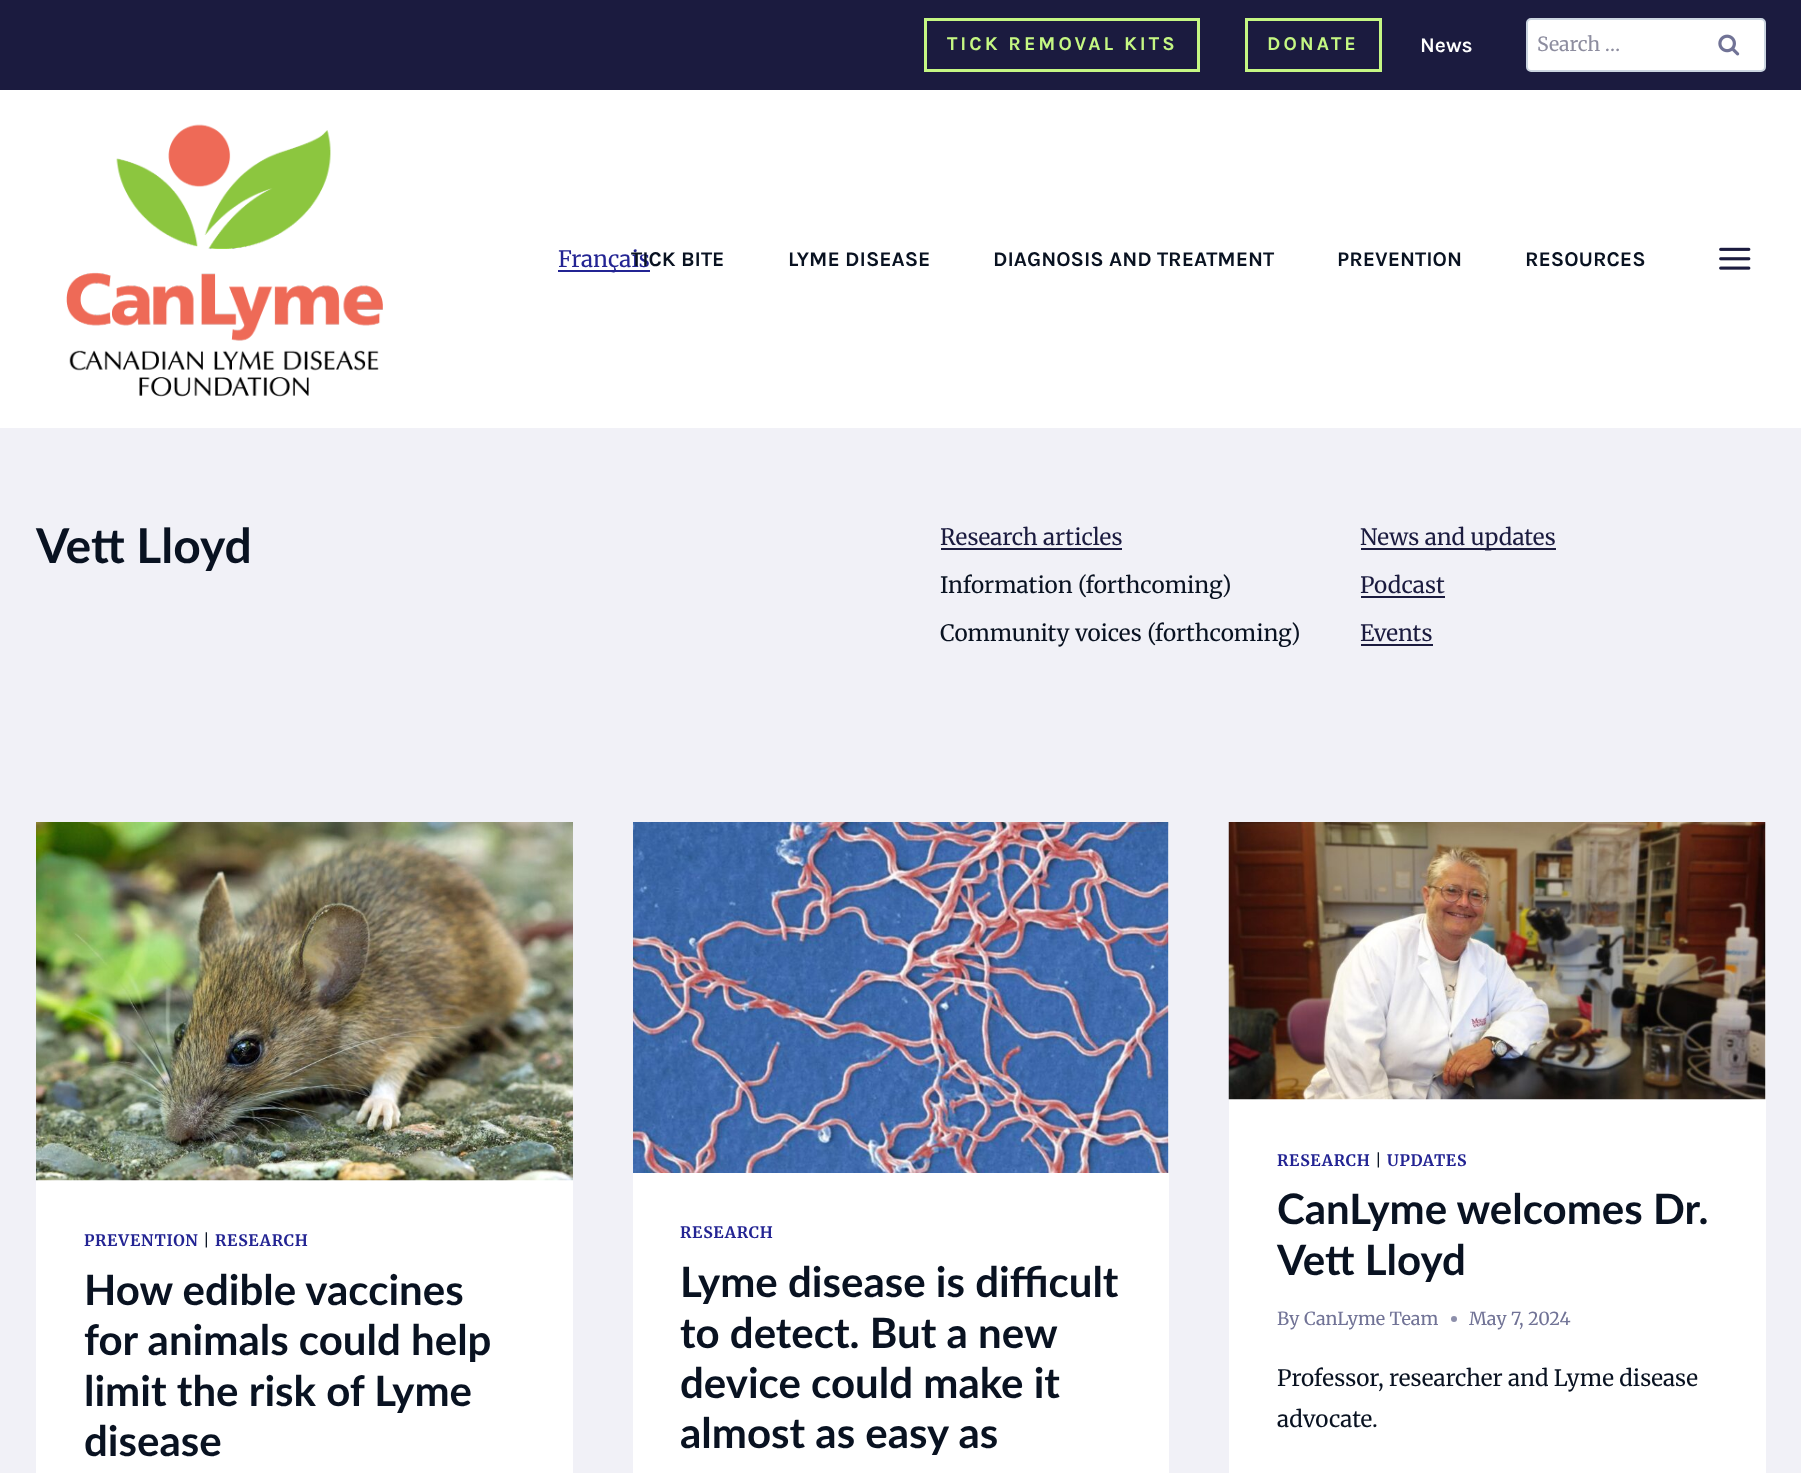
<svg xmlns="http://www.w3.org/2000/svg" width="1801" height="1473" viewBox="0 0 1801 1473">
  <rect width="100%" height="100%" fill="rgb(241,241,247)"/>
  <rect x="0" y="90" width="1801" height="338" fill="rgb(255,255,255)"/>
  <rect x="0" y="0" width="1801" height="90" fill="rgb(27,27,63)"/>
  <rect x="925.5" y="19.5" width="273" height="51" fill="none" stroke="rgb(197,247,131)" stroke-width="3"/>
  <text x="947" y="50" font-family="Karla" font-size="19.5" font-weight="bold" letter-spacing="3" fill="rgb(197,247,131)">TICK REMOVAL KITS</text>
  <rect x="1246.5" y="19.5" width="134" height="51" fill="none" stroke="rgb(197,247,131)" stroke-width="3"/>
  <text x="1267" y="50" font-family="Karla" font-size="19.5" font-weight="bold" letter-spacing="3" fill="rgb(197,247,131)">DONATE</text>
  <text x="1420" y="52" font-family="Karla" font-size="21" font-weight="600" fill="rgb(255,255,255)">News</text>
  <rect x="1527" y="19" width="238" height="52" rx="4" fill="rgb(255,255,255)" stroke="rgb(203,213,224)" stroke-width="2"/>
  <text x="1537" y="51" font-family="Merriweather" font-size="19.5" fill="rgb(141,141,159)">Search …</text>
  <image x="1718" y="34" width="22" height="22" href="pic1.png"/>
  <image x="66" y="124" width="317" height="273" href="pic2.png"/>
  <rect x="558" y="270" width="92" height="2" fill="rgb(35,36,147)"/>
  <text x="558" y="267" font-family="Merriweather" font-size="22.5" fill="rgb(35,36,147)">Français</text>
  <g font-family="Karla" font-size="21" font-weight="bold" fill="rgb(9,18,33)">
    <text x="631" y="266">TICK BITE</text>
    <text x="788" y="266">LYME DISEASE</text>
    <text x="993" y="266">DIAGNOSIS AND TREATMENT</text>
    <text x="1337" y="266">PREVENTION</text>
    <text x="1525" y="266">RESOURCES</text>
  </g>
  <image x="1719" y="247" width="32" height="23" href="pic3.png"/>
  <text x="36" y="563" font-family="Lato" font-size="48" font-weight="bold" fill="rgb(9,18,33)">Vett Lloyd</text>
  <text x="940" y="545" font-family="Merriweather" font-size="22.5" fill="rgb(27,27,63)">Research articles</text>
  <rect x="941" y="548" width="181" height="2" fill="rgb(27,27,63)"/>
  <rect x="1361" y="548" width="195" height="2" fill="rgb(27,27,63)"/>
  <text x="1360" y="545" font-family="Merriweather" font-size="22.5" fill="rgb(27,27,63)">News and updates</text>
  <text x="940" y="593" font-family="Merriweather" font-size="22.5" fill="rgb(9,18,33)">Information (forthcoming)</text>
  <text x="1360" y="593" font-family="Merriweather" font-size="22.5" fill="rgb(27,27,63)">Podcast</text>
  <rect x="1361" y="596" width="84" height="2" fill="rgb(27,27,63)"/>
  <text x="940" y="641" font-family="Merriweather" font-size="22.5" fill="rgb(9,18,33)">Community voices (forthcoming)</text>
  <text x="1360" y="641" font-family="Merriweather" font-size="22.5" fill="rgb(27,27,63)">Events</text>
  <rect x="1361" y="644" width="72" height="2" fill="rgb(27,27,63)"/>
  <rect x="36" y="1180" width="537" height="293" fill="rgb(255,255,255)"/>
  <image x="36" y="822" width="537" height="359" href="pic4.png"/>
  <text x="84" y="1246" font-family="Merriweather" font-size="15.75" font-weight="bold" letter-spacing="0.75" fill="rgb(35,36,147)">PREVENTION</text>
  <text x="203" y="1246" font-family="Merriweather" font-size="15.75" letter-spacing="0.75" fill="rgb(9,18,33)">|</text>
  <text x="215" y="1246" font-family="Merriweather" font-size="15.75" font-weight="bold" letter-spacing="0.75" fill="rgb(35,36,147)">RESEARCH</text>
  <g font-family="Lato" font-size="42" font-weight="bold" fill="rgb(9,18,33)">
    <text>
      <tspan x="84" y="1305">How edible vaccines</tspan>
      <tspan x="84" y="1355">for animals could help</tspan>
      <tspan x="84" y="1406">limit the risk of Lyme</tspan>
      <tspan x="84" y="1456">disease</tspan>
    </text>
  </g>
  <rect x="633" y="822" width="536" height="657" rx="6" fill="rgb(255,255,255)"/>
  <image x="633" y="822" width="536" height="351" href="pic5.png"/>
  <text x="680" y="1238" font-family="Merriweather" font-size="15.75" font-weight="bold" letter-spacing="0.75" fill="rgb(35,36,147)">RESEARCH</text>
  <g font-family="Lato" font-size="42" font-weight="bold" fill="rgb(9,18,33)">
    <text>
      <tspan x="680" y="1297">Lyme disease is difficult</tspan>
      <tspan x="680" y="1348">to detect. But a new</tspan>
      <tspan x="680" y="1398">device could make it</tspan>
      <tspan x="680" y="1448">almost as easy as</tspan>
    </text>
  </g>
  <rect x="1229" y="822" width="537" height="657" rx="6" fill="rgb(255,255,255)"/>
  <image x="1228" y="822" width="538" height="278" href="pic6.png"/>
  <text x="1277" y="1166" font-family="Merriweather" font-size="15.75" font-weight="bold" letter-spacing="0.75" fill="rgb(35,36,147)">RESEARCH</text>
  <text x="1375" y="1166" font-family="Merriweather" font-size="15.75" letter-spacing="0.75" fill="rgb(9,18,33)">|</text>
  <text x="1387" y="1166" font-family="Merriweather" font-size="15.75" font-weight="bold" letter-spacing="0.75" fill="rgb(35,36,147)">UPDATES</text>
  <g font-family="Lato" font-size="42" font-weight="bold" fill="rgb(9,18,33)">
    <text>
      <tspan x="1277" y="1224">CanLyme welcomes Dr.</tspan>
      <tspan x="1277" y="1275">Vett Lloyd</tspan>
    </text>
  </g>
  <g font-family="Merriweather" font-size="18" fill="rgb(113,115,150)">
    <text x="1277" y="1325">By</text>
    <text x="1304" y="1325">CanLyme Team</text>
  </g>
  <circle cx="1454" cy="1319" r="3" fill="rgb(141,143,171)"/>
  <text x="1469" y="1325" font-family="Merriweather" font-size="18" fill="rgb(113,115,150)">May 7, 2024</text>
  <g font-family="Merriweather" font-size="22.5" fill="rgb(9,18,33)">
    <text>
      <tspan x="1277" y="1386">Professor, researcher and Lyme disease</tspan>
      <tspan x="1277" y="1427">advocate.</tspan>
    </text>
  </g>
</svg>
